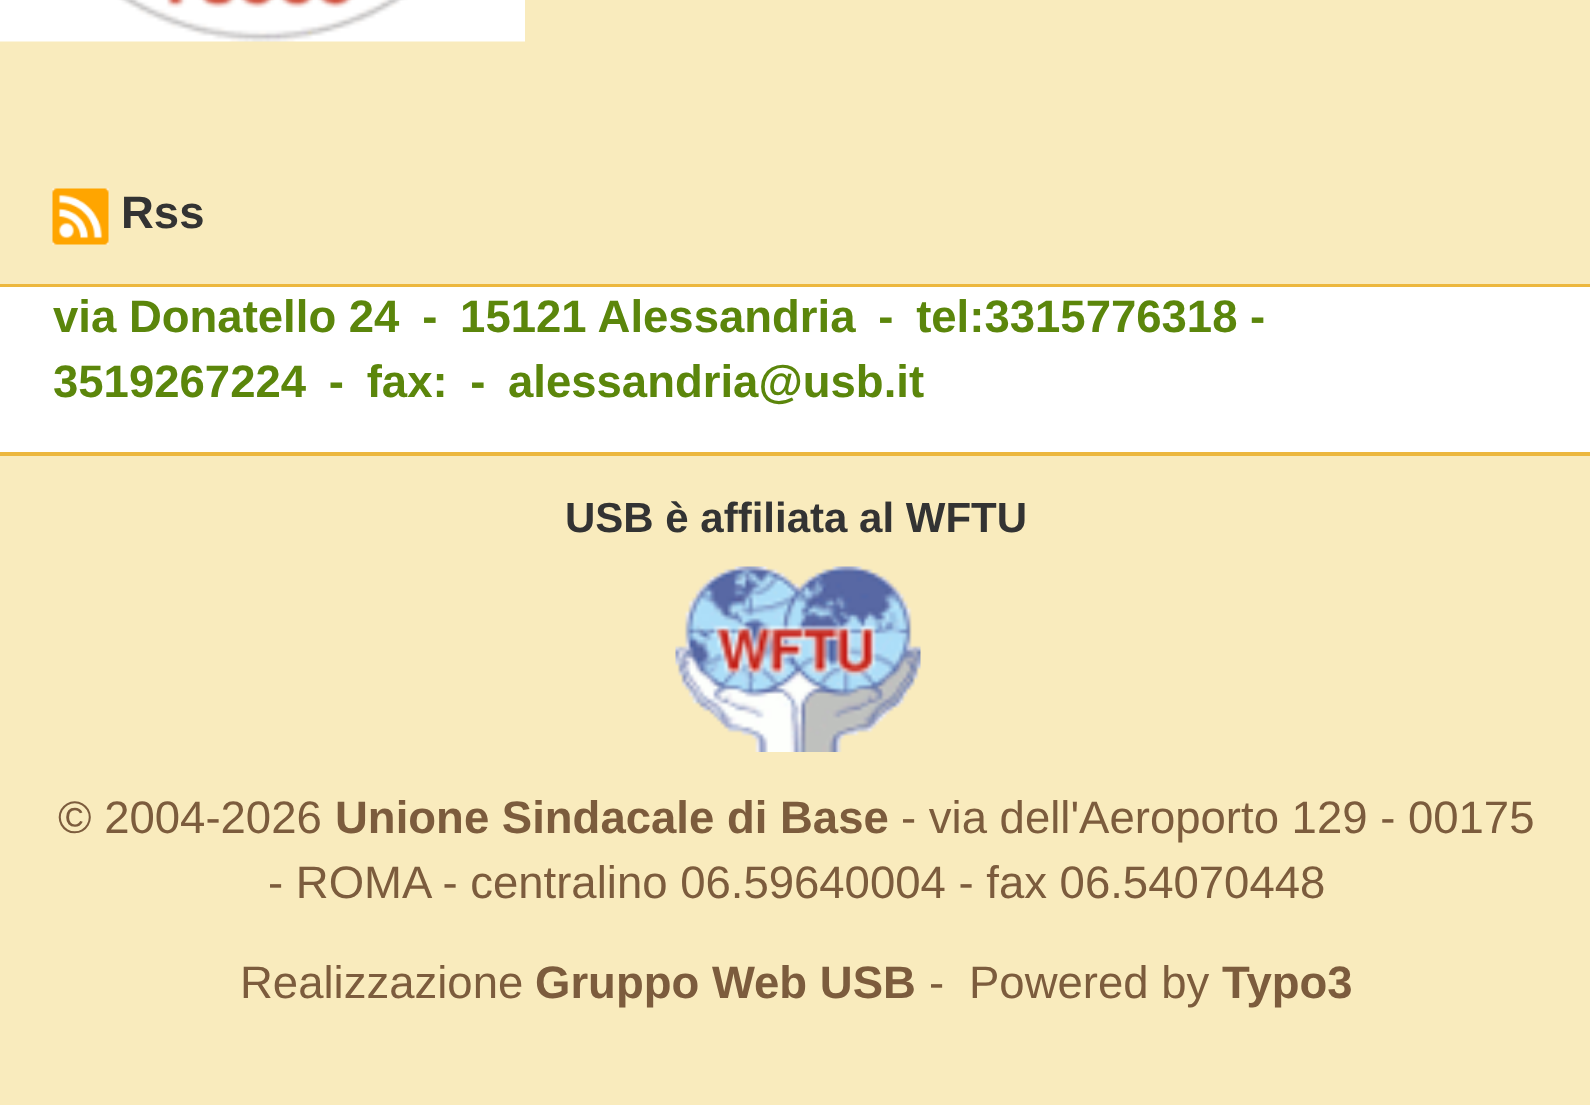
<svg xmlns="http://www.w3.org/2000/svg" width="1590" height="1105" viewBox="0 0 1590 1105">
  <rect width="100%" height="100%" fill="rgb(249,235,189)"/>
  <image x="0" y="0" width="525" height="42" href="pic1.png"/>
  <rect x="0" y="284" width="1590" height="3" fill="rgb(236,183,62)"/>
  <image x="52" y="188" width="57" height="57" href="pic2.png"/>
  <text x="121" y="228" font-family="Liberation Sans" font-size="45.5" font-weight="bold" fill="rgb(51,51,51)">Rss</text>
  <rect x="0" y="287" width="1590" height="165" fill="rgb(255,255,255)"/>
  <rect x="0" y="452" width="1590" height="4" fill="rgb(236,183,62)"/>
  <g font-family="Liberation Sans" font-size="45.5" font-weight="bold" fill="rgb(91,134,11)">
    <text>
      <tspan x="53" y="332">via Donatello 24 - 15121 Alessandria - tel:3315776318 -</tspan>
      <tspan x="53" y="397">3519267224 - fax: -</tspan>
    </text>
    <text x="508" y="397">alessandria@usb.it</text>
  </g>
  <text x="565" y="532" font-family="Liberation Sans" font-size="42" font-weight="bold" fill="rgb(51,51,51)">USB è affiliata al WFTU</text>
  <image x="675" y="566" width="246" height="186" href="pic3.png"/>
  <text x="58" y="833" font-family="Liberation Sans" font-size="45.5" fill="rgb(124,92,61)">© 2004-2026</text>
  <text x="335" y="833" font-family="Liberation Sans" font-size="45.5" font-weight="bold" fill="rgb(124,92,61)">Unione Sindacale di Base</text>
  <g font-family="Liberation Sans" font-size="45.5" fill="rgb(124,92,61)">
    <text x="901" y="833">‐ via dell'Aeroporto 129 - 00175</text>
    <text x="268" y="898">- ROMA - centralino 06.59640004 - fax 06.54070448</text>
    <text x="240" y="998">Realizzazione</text>
  </g>
  <text x="535" y="998" font-family="Liberation Sans" font-size="45.5" font-weight="bold" fill="rgb(124,92,61)">Gruppo Web USB</text>
  <g font-family="Liberation Sans" font-size="45.5" fill="rgb(124,92,61)">
    <text x="929" y="998">‐</text>
    <text x="969" y="998">Powered by</text>
  </g>
  <text x="1222" y="998" font-family="Liberation Sans" font-size="45.5" font-weight="bold" fill="rgb(124,92,61)">Typo3</text>
</svg>
